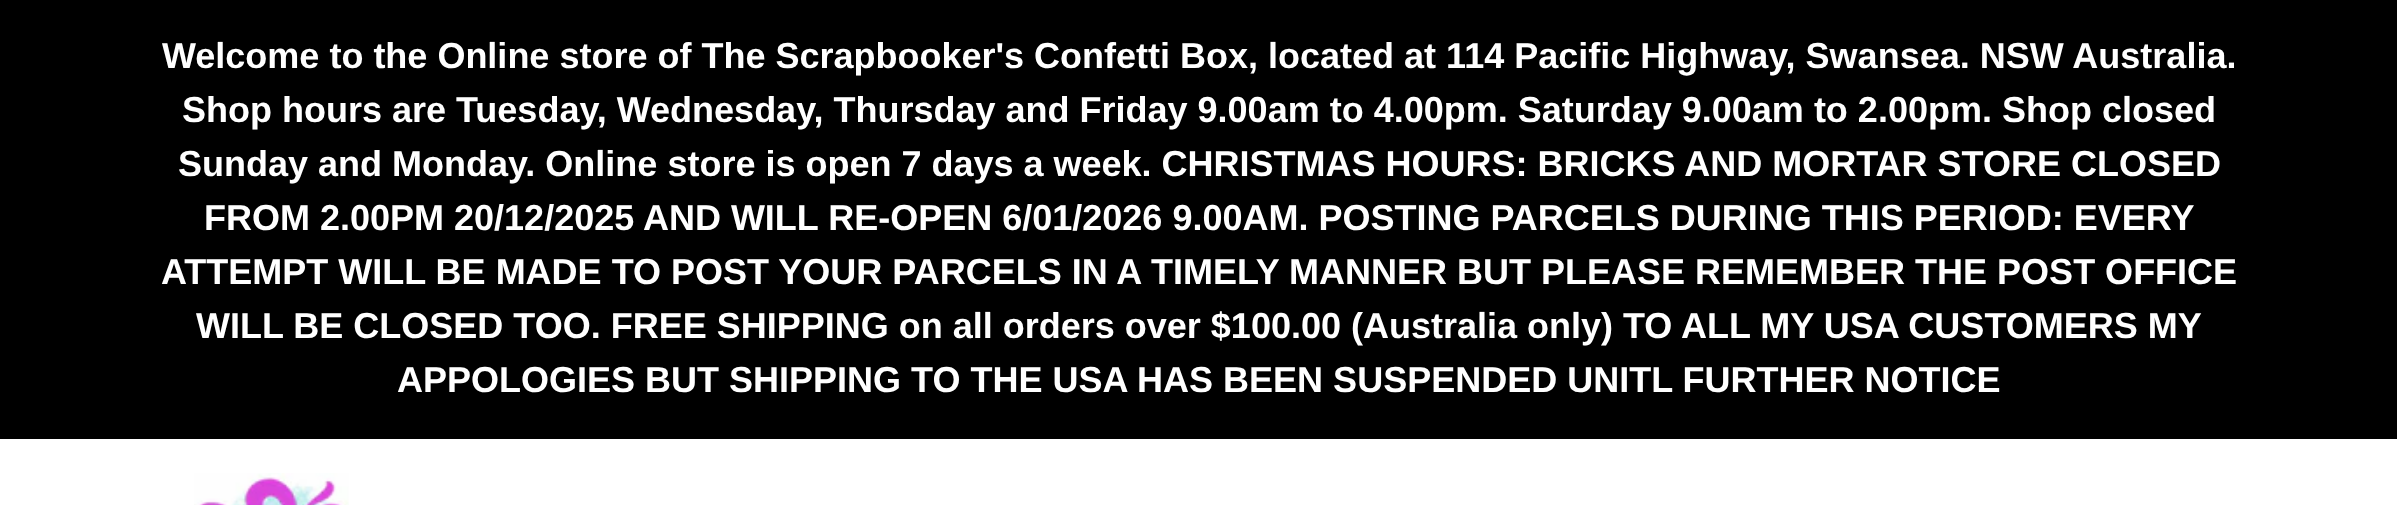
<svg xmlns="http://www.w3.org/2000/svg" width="2397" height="505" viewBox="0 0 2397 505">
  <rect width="100%" height="100%" fill="rgb(255,255,255)"/>
  <rect x="0" y="0" width="2397" height="439" fill="rgb(0,0,0)"/>
  <g font-family="Liberation Sans" font-size="36" font-weight="bold" fill="rgb(255,255,255)">
    <text x="162" y="68">Welcome to the Online store of The Scrapbooker's Confetti Box, located at 114 Pacific Highway, Swansea. NSW Australia.</text>
    <text x="182" y="122">Shop hours are Tuesday, Wednesday, Thursday and Friday 9.00am to 4.00pm. Saturday 9.00am to 2.00pm. Shop closed</text>
    <text x="178" y="176">Sunday and Monday. Online store is open 7 days a week. CHRISTMAS HOURS: BRICKS AND MORTAR STORE CLOSED</text>
    <text x="204" y="230">FROM 2.00PM 20/12/2025 AND WILL RE-OPEN 6/01/2026 9.00AM. POSTING PARCELS DURING THIS PERIOD: EVERY</text>
    <text x="161" y="284">ATTEMPT WILL BE MADE TO POST YOUR PARCELS IN A TIMELY MANNER BUT PLEASE REMEMBER THE POST OFFICE</text>
    <text x="196" y="338">WILL BE CLOSED TOO. FREE SHIPPING on all orders over $100.00 (Australia only) TO ALL MY USA CUSTOMERS MY</text>
    <text x="397" y="392">APPOLOGIES BUT SHIPPING TO THE USA HAS BEEN SUSPENDED UNITL FURTHER NOTICE</text>
  </g>
  <image x="194" y="473" width="155" height="32" href="pic1.png"/>
</svg>
